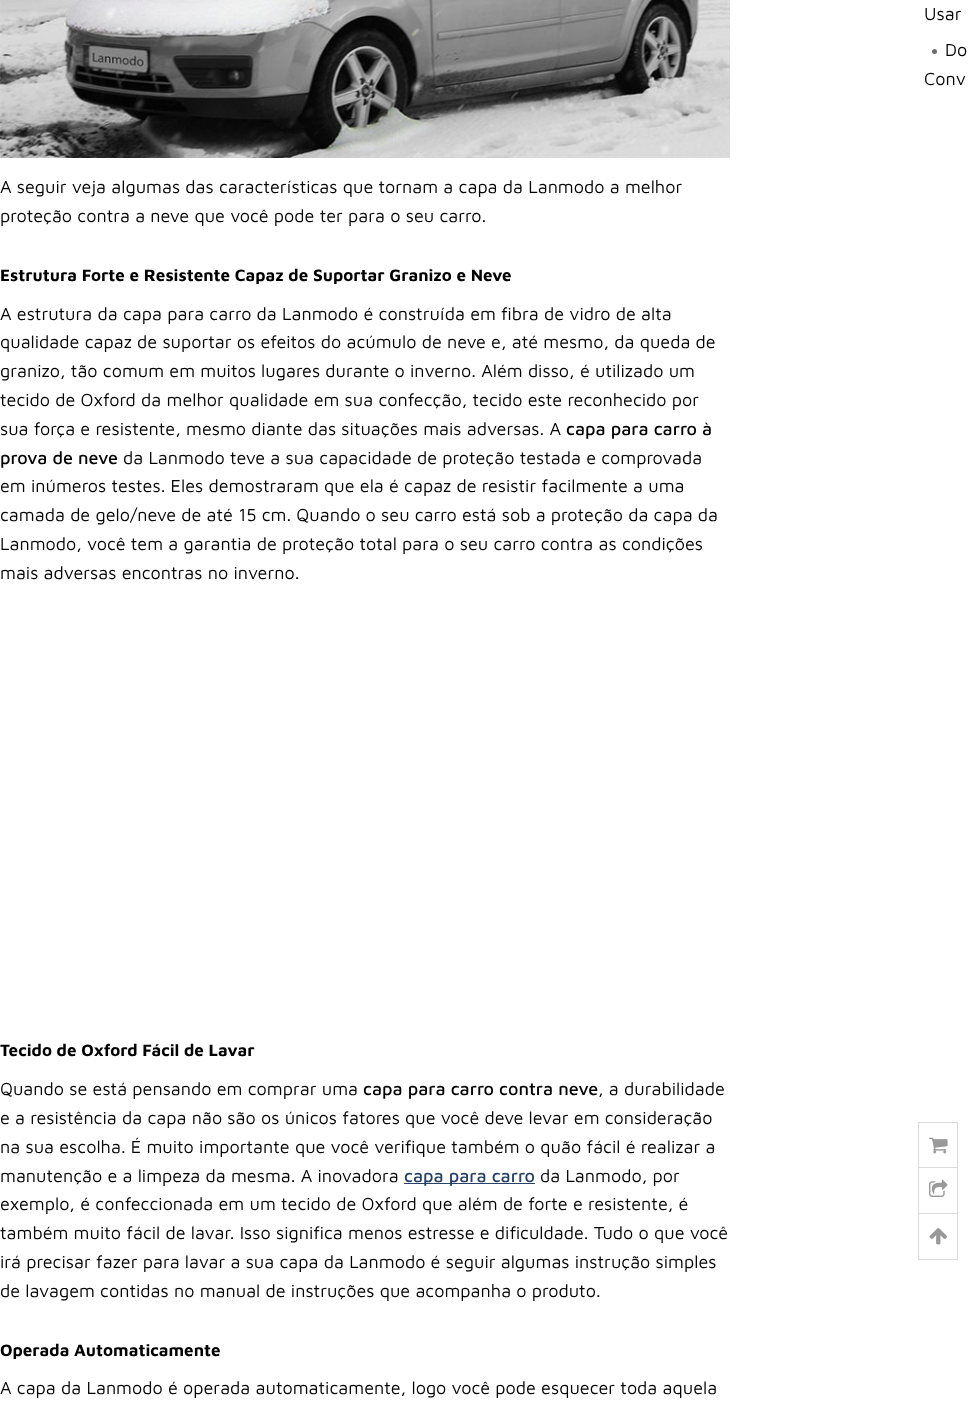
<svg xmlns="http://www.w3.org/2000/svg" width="968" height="1410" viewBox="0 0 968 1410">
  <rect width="100%" height="100%" fill="rgb(255,255,255)"/>
  <text x="924" y="20" font-family="Maven Pro" font-size="18" fill="rgb(0,0,0)">Usar</text>
  <circle cx="934.5" cy="51.5" r="2.5" fill="rgb(109,109,109)"/>
  <g font-family="Maven Pro" font-size="18" fill="rgb(0,0,0)">
    <text x="945" y="56">Do</text>
    <text x="924" y="85">Conv</text>
  </g>
  <image x="0" y="0" width="730" height="158" href="pic1.png"/>
  <g font-family="Maven Pro" font-size="18" fill="rgb(0,0,0)">
    <text>
      <tspan x="0" y="193">A seguir veja algumas das características que tornam a capa da Lanmodo a melhor</tspan>
      <tspan x="0" y="222">proteção contra a neve que você pode ter para o seu carro.</tspan>
    </text>
  </g>
  <text x="0" y="281" font-family="Maven Pro" font-size="17" font-weight="bold" fill="rgb(0,0,0)">Estrutura Forte e Resistente Capaz de Suportar Granizo e Neve</text>
  <g font-family="Maven Pro" font-size="18" fill="rgb(0,0,0)">
    <text>
      <tspan x="0" y="320">A estrutura da capa para carro da Lanmodo é construída em fibra de vidro de alta</tspan>
      <tspan x="0" y="348">qualidade capaz de suportar os efeitos do acúmulo de neve e, até mesmo, da queda de</tspan>
      <tspan x="0" y="377">granizo, tão comum em muitos lugares durante o inverno. Além disso, é utilizado um</tspan>
      <tspan x="0" y="406">tecido de Oxford da melhor qualidade em sua confecção, tecido este reconhecido por</tspan>
      <tspan x="0" y="435">sua força e resistente, mesmo diante das situações mais adversas. A</tspan>
    </text>
  </g>
  <g font-family="Maven Pro" font-size="18" font-weight="500" fill="rgb(0,0,0)">
    <text x="566" y="435">capa para carro à</text>
    <text x="0" y="464">prova de neve</text>
  </g>
  <g font-family="Maven Pro" font-size="18" fill="rgb(0,0,0)">
    <text x="123" y="464">da Lanmodo teve a sua capacidade de proteção testada e comprovada</text>
    <text>
      <tspan x="0" y="492">em inúmeros testes. Eles demostraram que ela é capaz de resistir facilmente a uma</tspan>
      <tspan x="0" y="521">camada de gelo/neve de até 15 cm. Quando o seu carro está sob a proteção da capa da</tspan>
      <tspan x="0" y="550">Lanmodo, você tem a garantia de proteção total para o seu carro contra as condições</tspan>
      <tspan x="0" y="579">mais adversas encontras no inverno.</tspan>
    </text>
  </g>
  <text x="0" y="1056" font-family="Maven Pro" font-size="17" font-weight="bold" fill="rgb(0,0,0)">Tecido de Oxford Fácil de Lavar</text>
  <text x="0" y="1095" font-family="Maven Pro" font-size="18" fill="rgb(0,0,0)">Quando se está pensando em comprar uma</text>
  <text x="363" y="1095" font-family="Maven Pro" font-size="18" font-weight="500" fill="rgb(0,0,0)">capa para carro contra neve</text>
  <g font-family="Maven Pro" font-size="18" fill="rgb(0,0,0)">
    <text x="598" y="1095">, a durabilidade</text>
    <text>
      <tspan x="0" y="1124">e a resistência da capa não são os únicos fatores que você deve levar em consideração</tspan>
      <tspan x="0" y="1153">na sua escolha. É muito importante que você verifique também o quão fácil é realizar a</tspan>
      <tspan x="0" y="1182">manutenção e a limpeza da mesma. A inovadora</tspan>
    </text>
  </g>
  <rect x="404" y="1183" width="131" height="1" fill="rgb(40,66,103)"/>
  <text x="404" y="1182" font-family="Maven Pro" font-size="18" font-weight="500" fill="rgb(40,66,103)">capa para carro</text>
  <g font-family="Maven Pro" font-size="18" fill="rgb(0,0,0)">
    <text x="540" y="1182">da Lanmodo, por</text>
    <text>
      <tspan x="0" y="1210">exemplo, é confeccionada em um tecido de Oxford que além de forte e resistente, é</tspan>
      <tspan x="0" y="1239">também muito fácil de lavar. Isso significa menos estresse e dificuldade. Tudo o que você</tspan>
      <tspan x="0" y="1268">irá precisar fazer para lavar a sua capa da Lanmodo é seguir algumas instrução simples</tspan>
      <tspan x="0" y="1297">de lavagem contidas no manual de instruções que acompanha o produto.</tspan>
    </text>
  </g>
  <text x="0" y="1356" font-family="Maven Pro" font-size="17" font-weight="bold" fill="rgb(0,0,0)">Operada Automaticamente</text>
  <text x="0" y="1394" font-family="Maven Pro" font-size="18" fill="rgb(0,0,0)">A capa da Lanmodo é operada automaticamente, logo você pode esquecer toda aquela</text>
  <rect x="957" y="1122" width="1" height="138" fill="rgb(217,217,217)"/>
  <rect x="918" y="1259" width="40" height="1" fill="rgb(217,217,217)"/>
  <rect x="918" y="1122" width="1" height="138" fill="rgb(217,217,217)"/>
  <rect x="919" y="1122" width="38" height="1" fill="rgb(217,217,217)"/>
  <image x="929" y="1137" width="19" height="17" href="pic2.png"/>
  <rect x="919" y="1167" width="38" height="1" fill="rgb(217,217,217)"/>
  <image x="929" y="1179" width="19" height="18" href="pic3.png"/>
  <rect x="919" y="1213" width="38" height="1" fill="rgb(217,217,217)"/>
  <image x="929" y="1228" width="18" height="17" href="pic4.png"/>
</svg>
